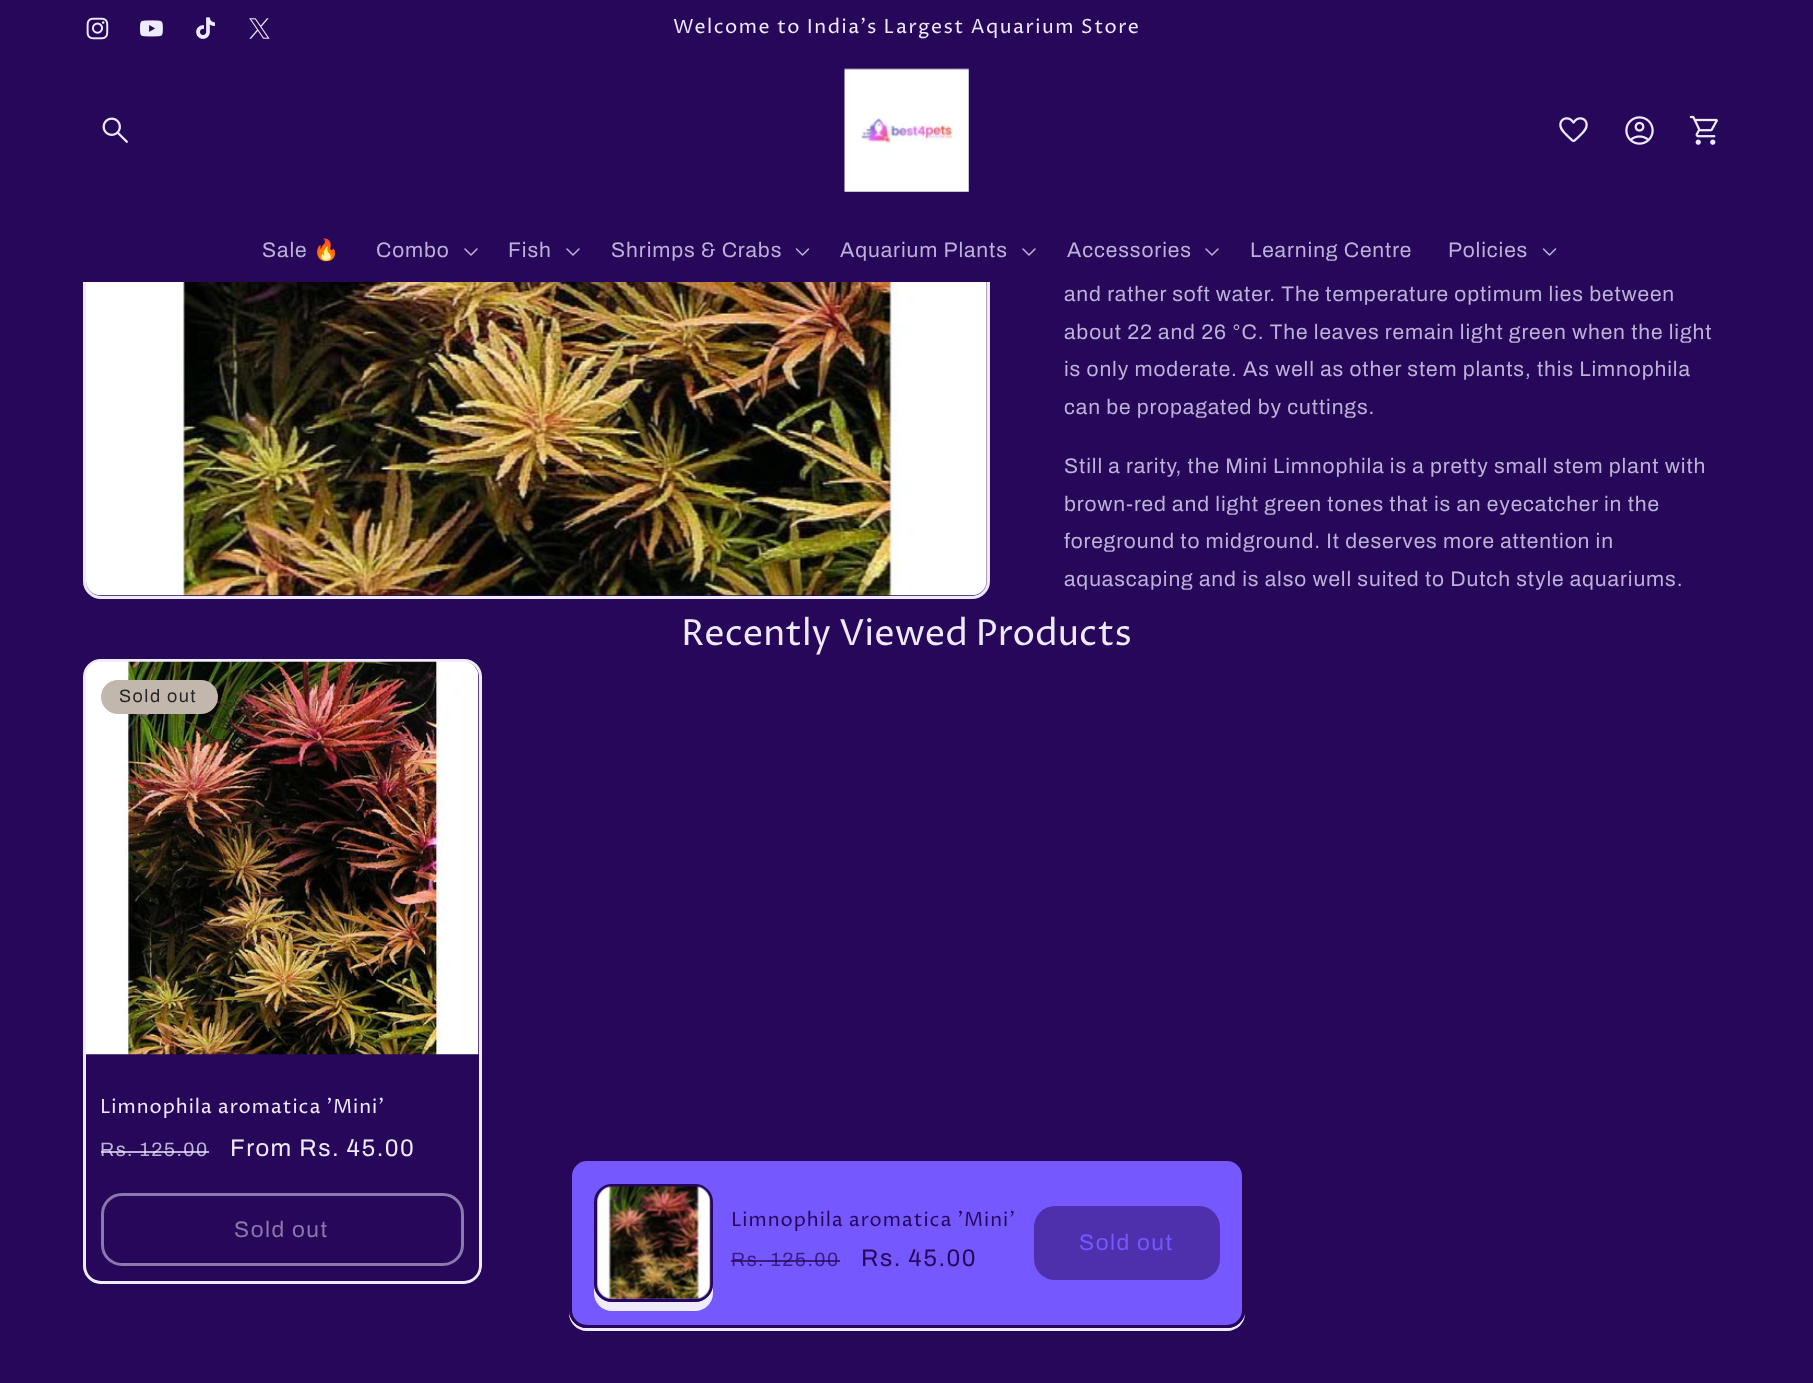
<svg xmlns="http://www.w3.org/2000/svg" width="1813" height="1383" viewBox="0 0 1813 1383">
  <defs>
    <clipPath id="clip1"><rect x="83" y="659" width="1650" height="625"/></clipPath>
  </defs>
  <rect width="100%" height="100%" fill="rgb(38,7,89)"/>
  <rect x="84.5" y="-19.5" width="904" height="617" rx="16.5" fill="none" stroke="rgb(238,234,255)" stroke-width="3"/>
  <rect x="83" y="0" width="907" height="282" fill="rgb(38,7,89)"/>
  <image x="86" y="17" width="23" height="23" href="pic1.png"/>
  <image x="139" y="20" width="24" height="17" href="pic2.png"/>
  <image x="196" y="17" width="19" height="22" href="pic3.png"/>
  <image x="249" y="18" width="21" height="21" href="pic4.png"/>
  <text x="673" y="33" font-family="Proza Libre" font-size="19.5" letter-spacing="1.5" fill="rgb(238,234,255)">Welcome to India's Largest Aquarium Store</text>
  <image x="102" y="117" width="26" height="26" href="pic5.png"/>
  <image x="844" y="68" width="125" height="124" href="pic6.png"/>
  <image x="1559" y="117" width="29" height="25" href="pic7.png"/>
  <image x="1625" y="116" width="29" height="29" href="pic8.png"/>
  <image x="1689" y="115" width="29" height="30" href="pic9.png"/>
  <text x="262" y="257" font-family="Archivo" font-size="21" letter-spacing="0.9" fill="rgb(188,177,214)">Sale</text>
  <text x="313" y="257" font-family="Noto Color Emoji" font-size="21" letter-spacing="0.9" fill="rgb(188,177,214)">🔥</text>
  <text x="376" y="257" font-family="Archivo" font-size="21" letter-spacing="0.9" fill="rgb(188,177,214)">Combo</text>
  <image x="464" y="248" width="14" height="8" href="pic10.png"/>
  <text x="508" y="257" font-family="Archivo" font-size="21" letter-spacing="0.9" fill="rgb(188,177,214)">Fish</text>
  <image x="566" y="248" width="14" height="8" href="pic10.png"/>
  <text x="611" y="257" font-family="Archivo" font-size="21" letter-spacing="0.9" fill="rgb(188,177,214)">Shrimps &amp; Crabs</text>
  <image x="795" y="248" width="15" height="8" href="pic11.png"/>
  <text x="840" y="257" font-family="Archivo" font-size="21" letter-spacing="0.9" fill="rgb(188,177,214)">Aquarium Plants</text>
  <image x="1022" y="248" width="14" height="8" href="pic10.png"/>
  <text x="1067" y="257" font-family="Archivo" font-size="21" letter-spacing="0.9" fill="rgb(188,177,214)">Accessories</text>
  <image x="1205" y="248" width="14" height="8" href="pic10.png"/>
  <g font-family="Archivo" font-size="21" letter-spacing="0.9" fill="rgb(188,177,214)">
    <text x="1250" y="257">Learning Centre</text>
    <text x="1448" y="257">Policies</text>
  </g>
  <image x="1542" y="248" width="15" height="8" href="pic11.png"/>
  <image x="86" y="282" width="901" height="314" href="pic12.png"/>
  <g font-family="Archivo" font-size="21" letter-spacing="0.9" fill="rgb(188,177,214)">
    <text>
      <tspan x="1064" y="301">and rather soft water. The temperature optimum lies between</tspan>
      <tspan x="1064" y="339">about 22 and 26 °C. The leaves remain light green when the light</tspan>
      <tspan x="1064" y="376">is only moderate. As well as other stem plants, this Limnophila</tspan>
      <tspan x="1064" y="414">can be propagated by cuttings.</tspan>
    </text>
    <text>
      <tspan x="1064" y="473">Still a rarity, the Mini Limnophila is a pretty small stem plant with</tspan>
      <tspan x="1064" y="511">brown-red and light green tones that is an eyecatcher in the</tspan>
      <tspan x="1064" y="548">foreground to midground. It deserves more attention in</tspan>
      <tspan x="1064" y="586">aquascaping and is also well suited to Dutch style aquariums.</tspan>
    </text>
  </g>
  <text x="681" y="645" font-family="Proza Libre" font-size="36" fill="rgb(238,234,255)">Recently Viewed Products</text>
  <rect x="84.5" y="660.5" width="396" height="622" rx="16.5" fill="none" stroke="rgb(238,234,255)" stroke-width="3"/>
  <image x="85" y="661" width="394" height="394" href="pic13.png"/>
  <rect x="101" y="680" width="117" height="34" rx="17" fill="rgb(194,183,172)"/>
  <text x="119" y="702" font-family="Archivo" font-size="18" letter-spacing="1.5" fill="rgb(38,38,38)">Sold out</text>
  <text x="100" y="1113" font-family="Proza Libre" font-size="19.5" letter-spacing="0.9" fill="rgb(238,234,255)">Limnophila aromatica 'Mini'</text>
  <text x="100" y="1156" font-family="Archivo" font-size="19.5" letter-spacing="1.5" fill="rgb(188,177,214)">Rs. 125.00</text>
  <rect x="101" y="1151" width="108" height="2" fill="rgba(238,234,255,0.75)"/>
  <text x="230" y="1156" font-family="Archivo" font-size="24" letter-spacing="1.5" fill="rgb(238,234,255)">From Rs. 45.00</text>
  <rect x="102.5" y="1194.5" width="360" height="70" rx="19.5" fill="none" stroke="rgb(138,121,172)" stroke-width="3"/>
  <text x="234" y="1237" font-family="Archivo" font-size="22.5" letter-spacing="1.5" fill="rgb(138,121,172)">Sold out</text>
  <g clip-path="url(#clip1)">
    <path d="M83 1270V1272C83 1282 91 1290 101 1290H464C474 1290 482 1282 482 1272V683V679V1266C482 1276 473 1284 464 1284H100C92 1284 85 1278 83 1270Z" fill="rgb(38,7,89)"/>
  </g>
  <path d="M569 1310V1313C569 1323 577 1331 587 1331H1227C1237 1331 1245 1323 1245 1314C1243 1322 1236 1328 1227 1328H587C577 1328 569 1320 569 1310Z" fill="rgb(238,234,255)"/>
  <rect x="570.5" y="1159.5" width="673" height="167" rx="16.5" fill="rgb(117,89,255)" stroke="rgb(38,7,89)" stroke-width="3"/>
  <path d="M594 1207V1211V1293C594 1303 602 1311 612 1311H695C705 1311 713 1303 713 1293V1210V1284C713 1294 705 1302 695 1302H612C603 1302 594 1294 594 1284Z" fill="rgb(238,234,255)"/>
  <rect x="595.5" y="1185.5" width="116" height="115" rx="16.5" fill="rgb(117,89,255)" stroke="rgb(38,7,89)" stroke-width="3"/>
  <image x="597" y="1186" width="114" height="114" href="pic14.png"/>
  <text x="731" y="1226" font-family="Proza Libre" font-size="19.5" letter-spacing="0.9" fill="rgb(38,7,89)">Limnophila aromatica 'Mini'</text>
  <text x="731" y="1266" font-family="Archivo" font-size="19.5" letter-spacing="1.5" fill="rgb(58,28,131)">Rs. 125.00</text>
  <rect x="731" y="1260" width="109" height="2" fill="rgba(38,7,89,0.75)"/>
  <text x="861" y="1266" font-family="Archivo" font-size="24" letter-spacing="1.5" fill="rgb(38,7,89)">Rs. 45.00</text>
  <rect x="1034" y="1206" width="186" height="74" rx="21" fill="rgb(78,48,172)"/>
  <text x="1079" y="1250" font-family="Archivo" font-size="22.5" letter-spacing="1.5" fill="rgb(117,89,255)">Sold out</text>
</svg>
